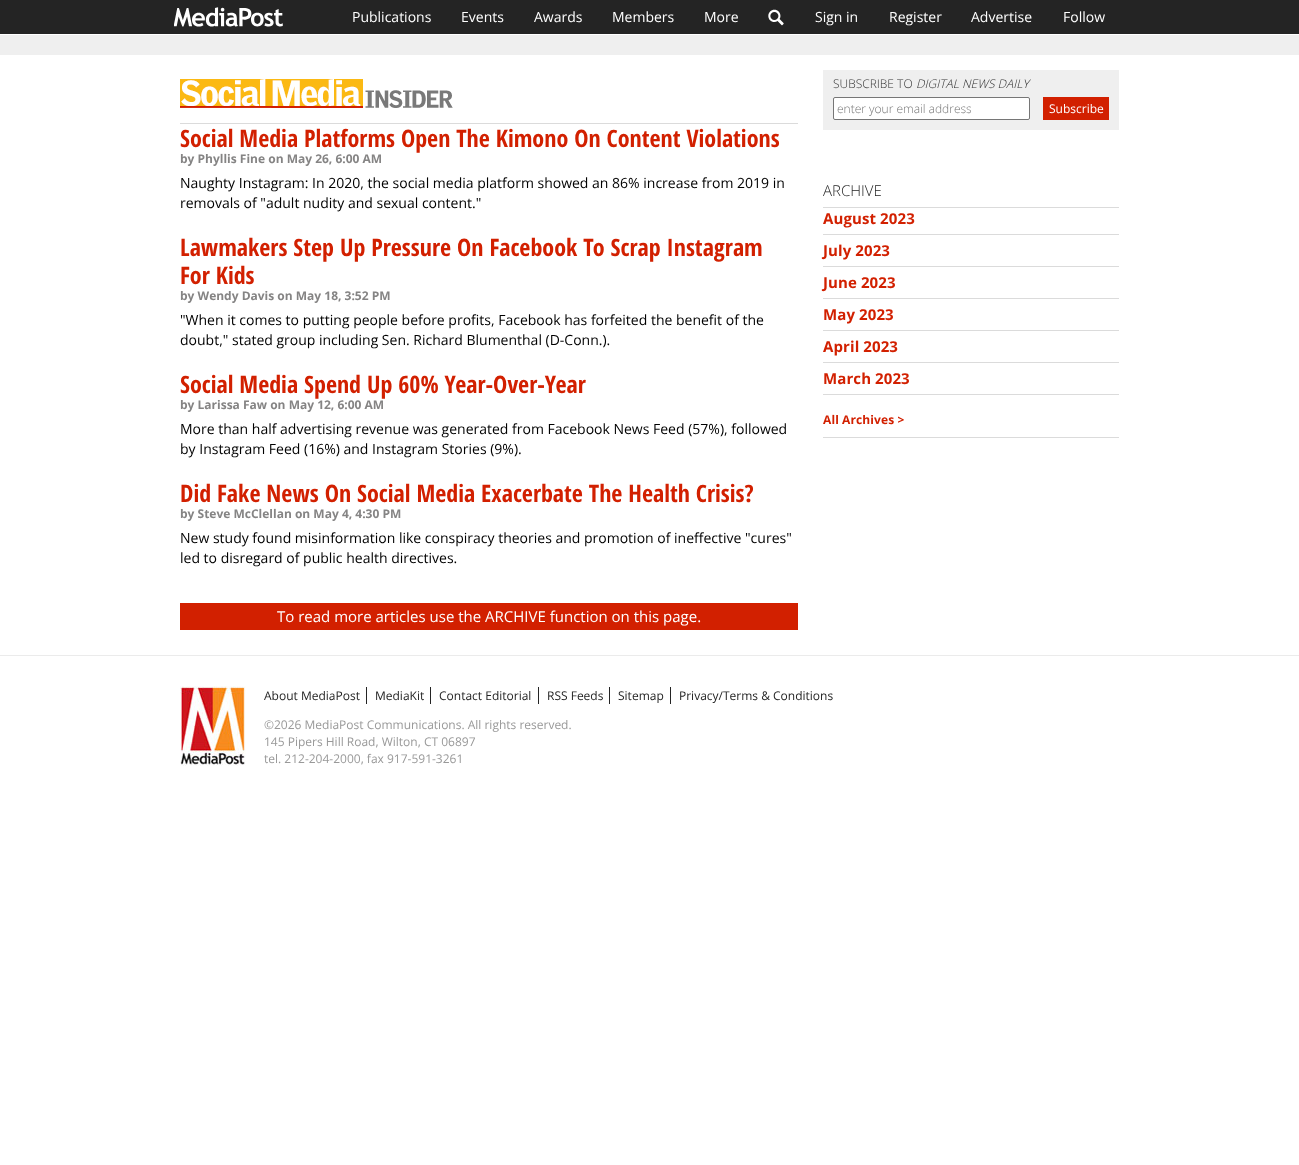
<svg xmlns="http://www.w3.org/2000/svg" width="1299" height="1165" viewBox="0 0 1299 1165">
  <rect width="100%" height="100%" fill="rgb(255,255,255)"/>
  <rect x="0" y="0" width="1299" height="34" fill="rgb(36,36,36)"/>
  <image x="174" y="7" width="109" height="20" href="pic1.png"/>
  <g font-family="Open Sans" font-size="14" fill="rgb(255,255,255)">
    <text x="352" y="22">Publications</text>
    <text x="461" y="22">Events</text>
    <text x="534" y="22">Awards</text>
    <text x="612" y="22">Members</text>
    <text x="704" y="22">More</text>
  </g>
  <image x="768" y="9" width="16" height="17" href="pic2.png"/>
  <g font-family="Open Sans" font-size="14" fill="rgb(255,255,255)">
    <text x="815" y="22">Sign in</text>
    <text x="889" y="22">Register</text>
    <text x="971" y="22">Advertise</text>
    <text x="1063" y="22">Follow</text>
  </g>
  <rect x="0" y="35" width="1299" height="20" fill="rgb(239,239,239)"/>
  <rect x="180" y="123" width="618" height="1" fill="rgb(219,219,219)"/>
  <image x="180" y="79" width="273" height="29" href="pic3.png"/>
  <text x="180" y="147" font-family="Open Sans Condensed" font-size="24" font-weight="bold" fill="rgb(210,32,0)">Social Media Platforms Open The Kimono On Content Violations</text>
  <text x="180" y="163" font-family="Open Sans" font-size="12" font-weight="bold" fill="rgb(133,132,132)">by Phyllis Fine on May 26, 6:00 AM</text>
  <g font-family="Open Sans" font-size="14" fill="rgb(0,0,0)">
    <text>
      <tspan x="180" y="188">Naughty Instagram: In 2020, the social media platform showed an 86% increase from 2019 in</tspan>
      <tspan x="180" y="208">removals of "adult nudity and sexual content."</tspan>
    </text>
  </g>
  <g font-family="Open Sans Condensed" font-size="24" font-weight="bold" fill="rgb(210,32,0)">
    <text>
      <tspan x="180" y="256">Lawmakers Step Up Pressure On Facebook To Scrap Instagram</tspan>
      <tspan x="180" y="284">For Kids</tspan>
    </text>
  </g>
  <text x="180" y="300" font-family="Open Sans" font-size="12" font-weight="bold" fill="rgb(133,132,132)">by Wendy Davis on May 18, 3:52 PM</text>
  <g font-family="Open Sans" font-size="14" fill="rgb(0,0,0)">
    <text>
      <tspan x="180" y="325">"When it comes to putting people before profits, Facebook has forfeited the benefit of the</tspan>
      <tspan x="180" y="345">doubt," stated group including Sen. Richard Blumenthal (D-Conn.).</tspan>
    </text>
  </g>
  <text x="180" y="393" font-family="Open Sans Condensed" font-size="24" font-weight="bold" fill="rgb(210,32,0)">Social Media Spend Up 60% Year-Over-Year</text>
  <text x="180" y="409" font-family="Open Sans" font-size="12" font-weight="bold" fill="rgb(133,132,132)">by Larissa Faw on May 12, 6:00 AM</text>
  <g font-family="Open Sans" font-size="14" fill="rgb(0,0,0)">
    <text>
      <tspan x="180" y="434">More than half advertising revenue was generated from Facebook News Feed (57%), followed</tspan>
      <tspan x="180" y="454">by Instagram Feed (16%) and Instagram Stories (9%).</tspan>
    </text>
  </g>
  <text x="180" y="502" font-family="Open Sans Condensed" font-size="24" font-weight="bold" fill="rgb(210,32,0)">Did Fake News On Social Media Exacerbate The Health Crisis?</text>
  <text x="180" y="518" font-family="Open Sans" font-size="12" font-weight="bold" fill="rgb(133,132,132)">by Steve McClellan on May 4, 4:30 PM</text>
  <g font-family="Open Sans" font-size="14" fill="rgb(0,0,0)">
    <text>
      <tspan x="180" y="543">New study found misinformation like conspiracy theories and promotion of ineffective "cures"</tspan>
      <tspan x="180" y="563">led to disregard of public health directives.</tspan>
    </text>
  </g>
  <rect x="180" y="603" width="618" height="27" fill="rgb(210,32,0)"/>
  <text x="277" y="622" font-family="Open Sans" font-size="15" fill="rgb(255,255,255)">To read more articles use the ARCHIVE function on this page.</text>
  <rect x="823" y="70" width="296" height="60" fill="rgb(239,239,239)"/>
  <text x="833" y="88" font-family="Open Sans" font-size="12" font-weight="300" fill="rgb(51,51,51)">SUBSCRIBE TO</text>
  <text x="916" y="88" font-family="Open Sans" font-size="12" font-weight="300" font-style="italic" fill="rgb(51,51,51)">DIGITAL NEWS DAILY</text>
  <rect x="833.5" y="97.5" width="196" height="22" rx="1.5" fill="rgb(255,255,255)" stroke="rgb(118,118,118)"/>
  <text x="837" y="113" font-family="Open Sans" font-size="12" font-weight="300" fill="rgb(117,117,117)">enter your email address</text>
  <rect x="1043" y="97" width="66" height="23" fill="rgb(210,32,0)"/>
  <text x="1049" y="113" font-family="Open Sans" font-size="12" fill="rgb(255,255,255)">Subscribe</text>
  <rect x="823" y="207" width="296" height="1" fill="rgb(219,219,219)"/>
  <text x="823" y="196" font-family="Open Sans" font-size="15" font-weight="300" fill="rgb(36,36,36)">ARCHIVE</text>
  <rect x="823" y="234" width="296" height="1" fill="rgb(219,219,219)"/>
  <text x="823" y="224" font-family="Open Sans" font-size="15" font-weight="bold" letter-spacing="0.1" fill="rgb(210,32,0)">August 2023</text>
  <rect x="823" y="266" width="296" height="1" fill="rgb(219,219,219)"/>
  <text x="823" y="256" font-family="Open Sans" font-size="15" font-weight="bold" letter-spacing="0.1" fill="rgb(210,32,0)">July 2023</text>
  <rect x="823" y="298" width="296" height="1" fill="rgb(219,219,219)"/>
  <text x="823" y="288" font-family="Open Sans" font-size="15" font-weight="bold" letter-spacing="0.1" fill="rgb(210,32,0)">June 2023</text>
  <rect x="823" y="330" width="296" height="1" fill="rgb(219,219,219)"/>
  <text x="823" y="320" font-family="Open Sans" font-size="15" font-weight="bold" letter-spacing="0.1" fill="rgb(210,32,0)">May 2023</text>
  <rect x="823" y="362" width="296" height="1" fill="rgb(219,219,219)"/>
  <text x="823" y="352" font-family="Open Sans" font-size="15" font-weight="bold" letter-spacing="0.1" fill="rgb(210,32,0)">April 2023</text>
  <rect x="823" y="394" width="296" height="1" fill="rgb(219,219,219)"/>
  <text x="823" y="384" font-family="Open Sans" font-size="15" font-weight="bold" letter-spacing="0.1" fill="rgb(210,32,0)">March 2023</text>
  <rect x="823" y="437" width="296" height="1" fill="rgb(219,219,219)"/>
  <text x="823" y="424" font-family="Open Sans" font-size="12" font-weight="bold" letter-spacing="0.1" fill="rgb(210,32,0)">All Archives &gt;</text>
  <rect x="0" y="655" width="1299" height="1" fill="rgb(235,235,235)"/>
  <image x="180" y="686" width="66" height="80" href="pic4.png"/>
  <text x="264" y="700" font-family="Open Sans" font-size="12" fill="rgb(36,36,36)">About MediaPost</text>
  <rect x="366" y="687" width="1" height="17" fill="rgb(36,36,36)"/>
  <text x="375" y="700" font-family="Open Sans" font-size="12" fill="rgb(36,36,36)">MediaKit</text>
  <rect x="430" y="687" width="1" height="17" fill="rgb(36,36,36)"/>
  <text x="439" y="700" font-family="Open Sans" font-size="12" fill="rgb(36,36,36)">Contact Editorial</text>
  <rect x="538" y="687" width="1" height="17" fill="rgb(36,36,36)"/>
  <text x="547" y="700" font-family="Open Sans" font-size="12" fill="rgb(36,36,36)">RSS Feeds</text>
  <rect x="609" y="687" width="1" height="17" fill="rgb(36,36,36)"/>
  <text x="618" y="700" font-family="Open Sans" font-size="12" fill="rgb(36,36,36)">Sitemap</text>
  <rect x="670" y="687" width="1" height="17" fill="rgb(36,36,36)"/>
  <text x="679" y="700" font-family="Open Sans" font-size="12" fill="rgb(36,36,36)">Privacy/Terms &amp; Conditions</text>
  <g font-family="Open Sans" font-size="12" fill="rgb(153,153,153)">
    <text>
      <tspan x="264" y="729">©2026 MediaPost Communications. All rights reserved.</tspan>
      <tspan x="264" y="746">145 Pipers Hill Road, Wilton, CT 06897</tspan>
      <tspan x="264" y="763">tel. 212-204-2000, fax 917-591-3261</tspan>
    </text>
  </g>
</svg>
